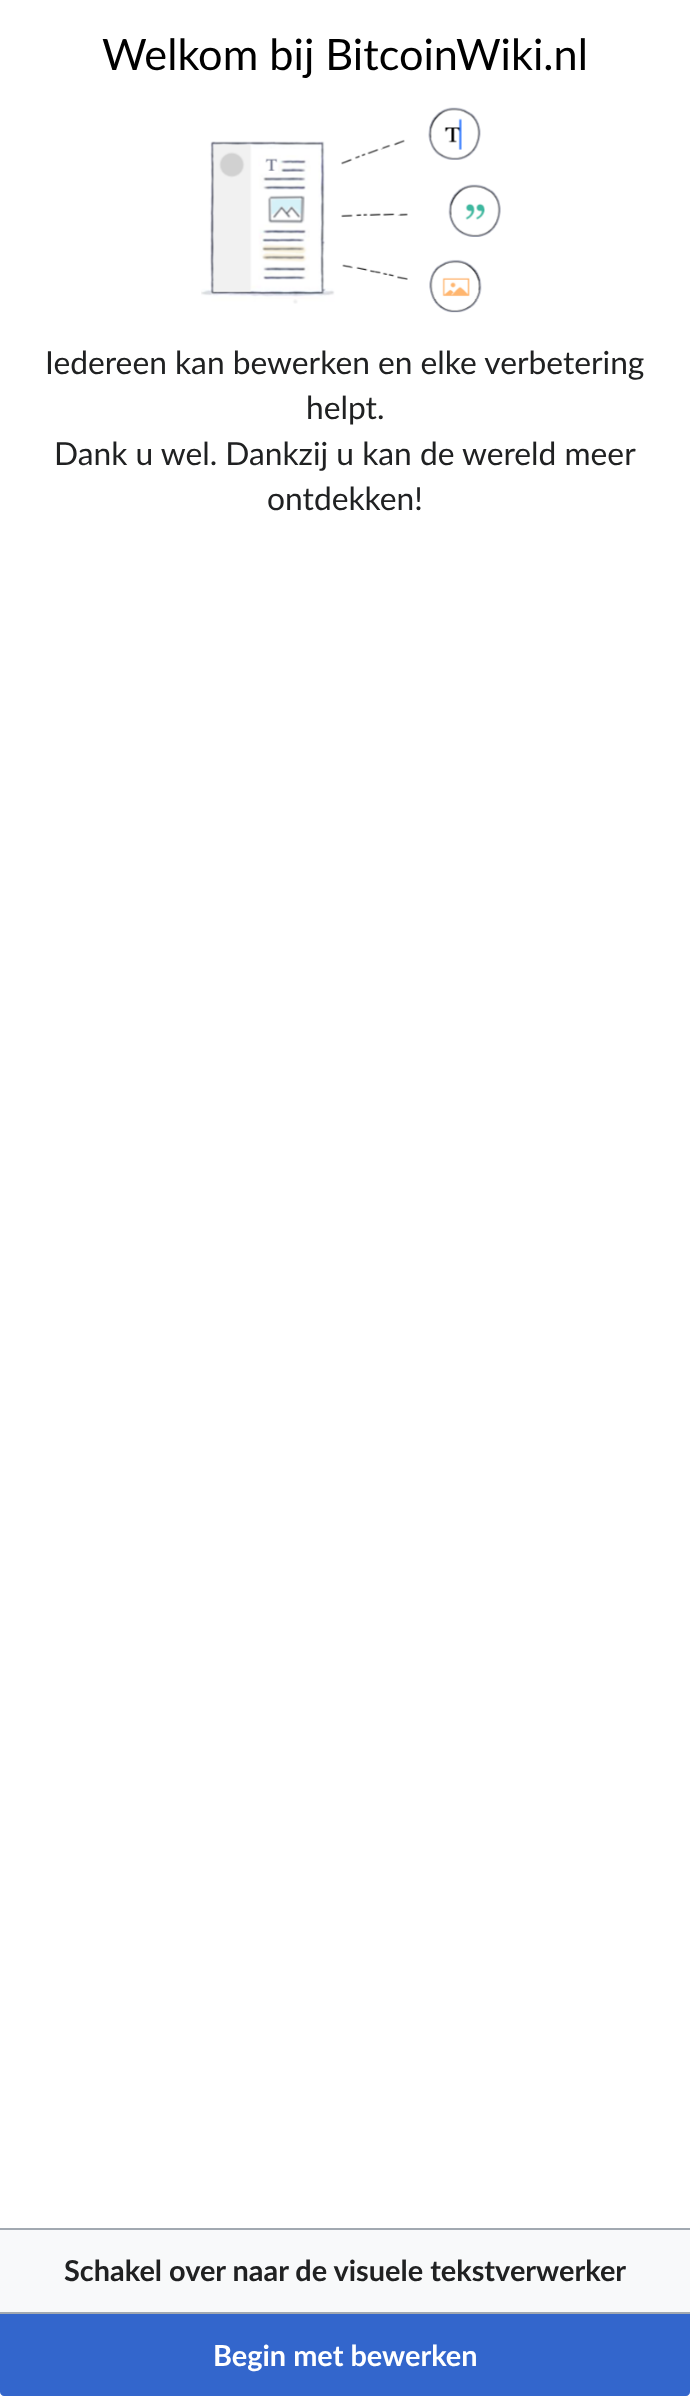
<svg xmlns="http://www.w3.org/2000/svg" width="690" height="2396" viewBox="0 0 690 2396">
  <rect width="100%" height="100%" fill="rgb(255,255,255)"/>
  <text x="102" y="70" font-family="Lato" font-size="43.25" fill="rgb(0,0,0)">Welkom bij BitcoinWiki.nl</text>
  <image x="201" y="107" width="300" height="206" href="pic1.png"/>
  <g font-family="Lato" font-size="31.75" fill="rgb(32,33,34)">
    <text x="45" y="374">Iedereen kan bewerken en elke verbetering</text>
    <text x="306" y="419">helpt.</text>
    <text x="54" y="465">Dank u wel. Dankzij u kan de wereld meer</text>
    <text x="267" y="510">ontdekken!</text>
  </g>
  <rect x="-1" y="2229" width="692" height="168" fill="none" stroke="rgb(162,169,177)" stroke-width="2"/>
  <rect x="0" y="2312" width="690" height="2" fill="rgb(162,169,177)"/>
  <rect x="0" y="2230" width="690" height="82" fill="rgb(248,249,250)"/>
  <text x="64" y="2281" font-family="Lato" font-size="28.9" font-weight="bold" fill="rgb(32,33,34)">Schakel over naar de visuele tekstverwerker</text>
  <path d="M0 2314H690V2392C690 2394 688 2396 686 2396H4C2 2396 0 2394 0 2392Z" fill="rgb(51,102,204)"/>
  <text x="213" y="2366" font-family="Lato" font-size="28.9" font-weight="bold" fill="rgb(255,255,255)">Begin met bewerken</text>
</svg>
